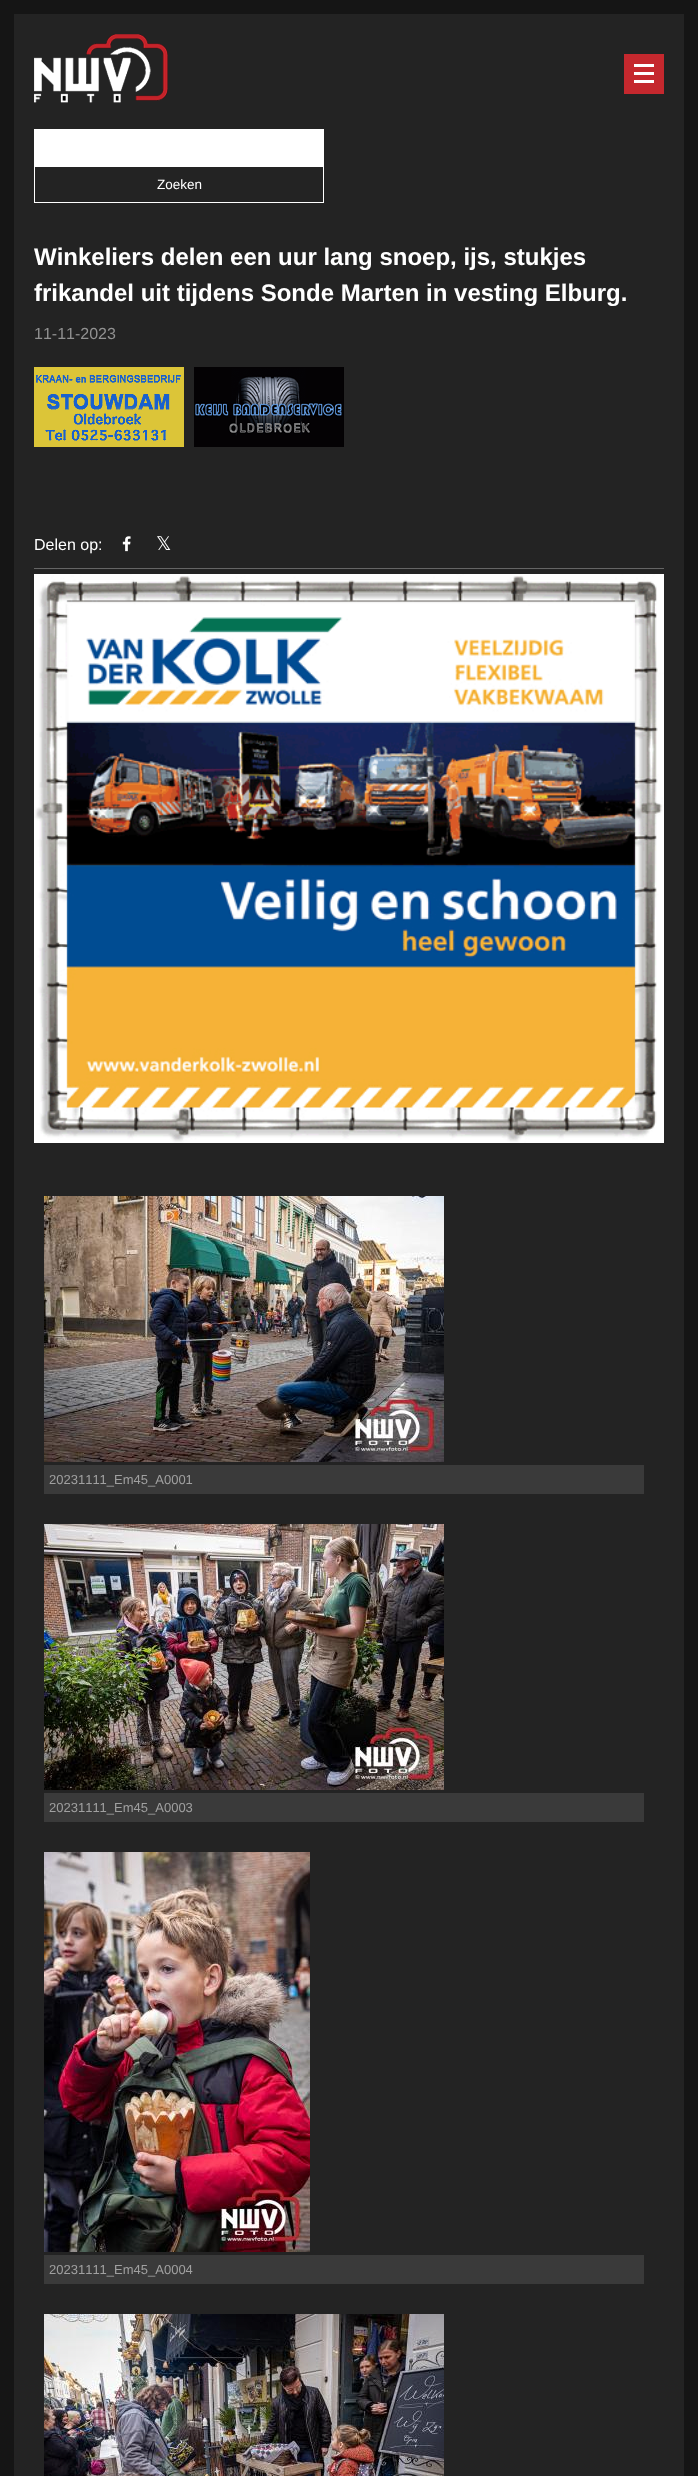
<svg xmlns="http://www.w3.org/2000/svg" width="698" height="2476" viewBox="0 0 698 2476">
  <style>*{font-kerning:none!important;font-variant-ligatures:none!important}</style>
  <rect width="100%" height="100%" fill="rgb(21,21,21)"/>
  <rect x="14" y="14" width="670" height="2462" fill="rgb(35,35,35)"/>
  <image x="34" y="34" width="134" height="69" href="pic1.png"/>
  <rect x="624" y="54" width="40" height="40" fill="rgb(197,40,46)"/>
  <rect x="634" y="64" width="20" height="3" fill="rgb(255,255,255)"/>
  <rect x="634" y="72" width="20" height="3" fill="rgb(255,255,255)"/>
  <rect x="634" y="80" width="20" height="3" fill="rgb(255,255,255)"/>
  <rect x="34" y="129" width="290" height="37" fill="rgb(255,255,255)"/>
  <rect x="34.5" y="166.5" width="289" height="36" fill="none" stroke="rgb(255,255,255)"/>
  <text x="157" y="189" font-family="Liberation Sans" font-size="13.5" fill="rgb(255,255,255)">Zoeken</text>
  <g font-family="Arimo" font-size="24" font-weight="bold" fill="rgb(255,255,255)">
    <text>
      <tspan x="34" y="265">Winkeliers delen een uur lang snoep, ijs, stukjes</tspan>
      <tspan x="34" y="301">frikandel uit tijdens Sonde Marten in vesting Elburg.</tspan>
    </text>
  </g>
  <text x="34" y="339" font-family="Arimo" font-size="16" fill="rgb(145,145,145)">11-11-2023</text>
  <image x="34" y="367" width="150" height="80" href="pic2.png"/>
  <image x="194" y="367" width="150" height="80" href="pic3.png"/>
  <rect x="34" y="568" width="630" height="1" fill="rgb(101,101,101)"/>
  <text x="34" y="550" font-family="Arimo" font-size="16" fill="rgb(255,255,255)">Delen op:</text>
  <image x="122" y="536" width="9" height="16" href="pic4.png"/>
  <text x="156" y="550" font-family="DejaVu Sans" font-size="19" fill="rgb(255,255,255)">𝕏</text>
  <image x="34" y="574" width="630" height="569" href="pic5.png"/>
  <image x="44" y="1196" width="400" height="266" href="pic6.png"/>
  <rect x="44" y="1465" width="600" height="29" fill="rgb(58,58,58)"/>
  <text x="49" y="1484" font-family="Arimo" font-size="13" fill="rgb(160,160,160)">20231111_Em45_A0001</text>
  <image x="44" y="1524" width="400" height="266" href="pic7.png"/>
  <rect x="44" y="1793" width="600" height="29" fill="rgb(58,58,58)"/>
  <text x="49" y="1812" font-family="Arimo" font-size="13" fill="rgb(160,160,160)">20231111_Em45_A0003</text>
  <image x="44" y="1852" width="266" height="400" href="pic8.png"/>
  <rect x="44" y="2255" width="600" height="29" fill="rgb(58,58,58)"/>
  <text x="49" y="2274" font-family="Arimo" font-size="13" fill="rgb(160,160,160)">20231111_Em45_A0004</text>
  <image x="44" y="2314" width="400" height="162" href="pic9.png"/>
</svg>
